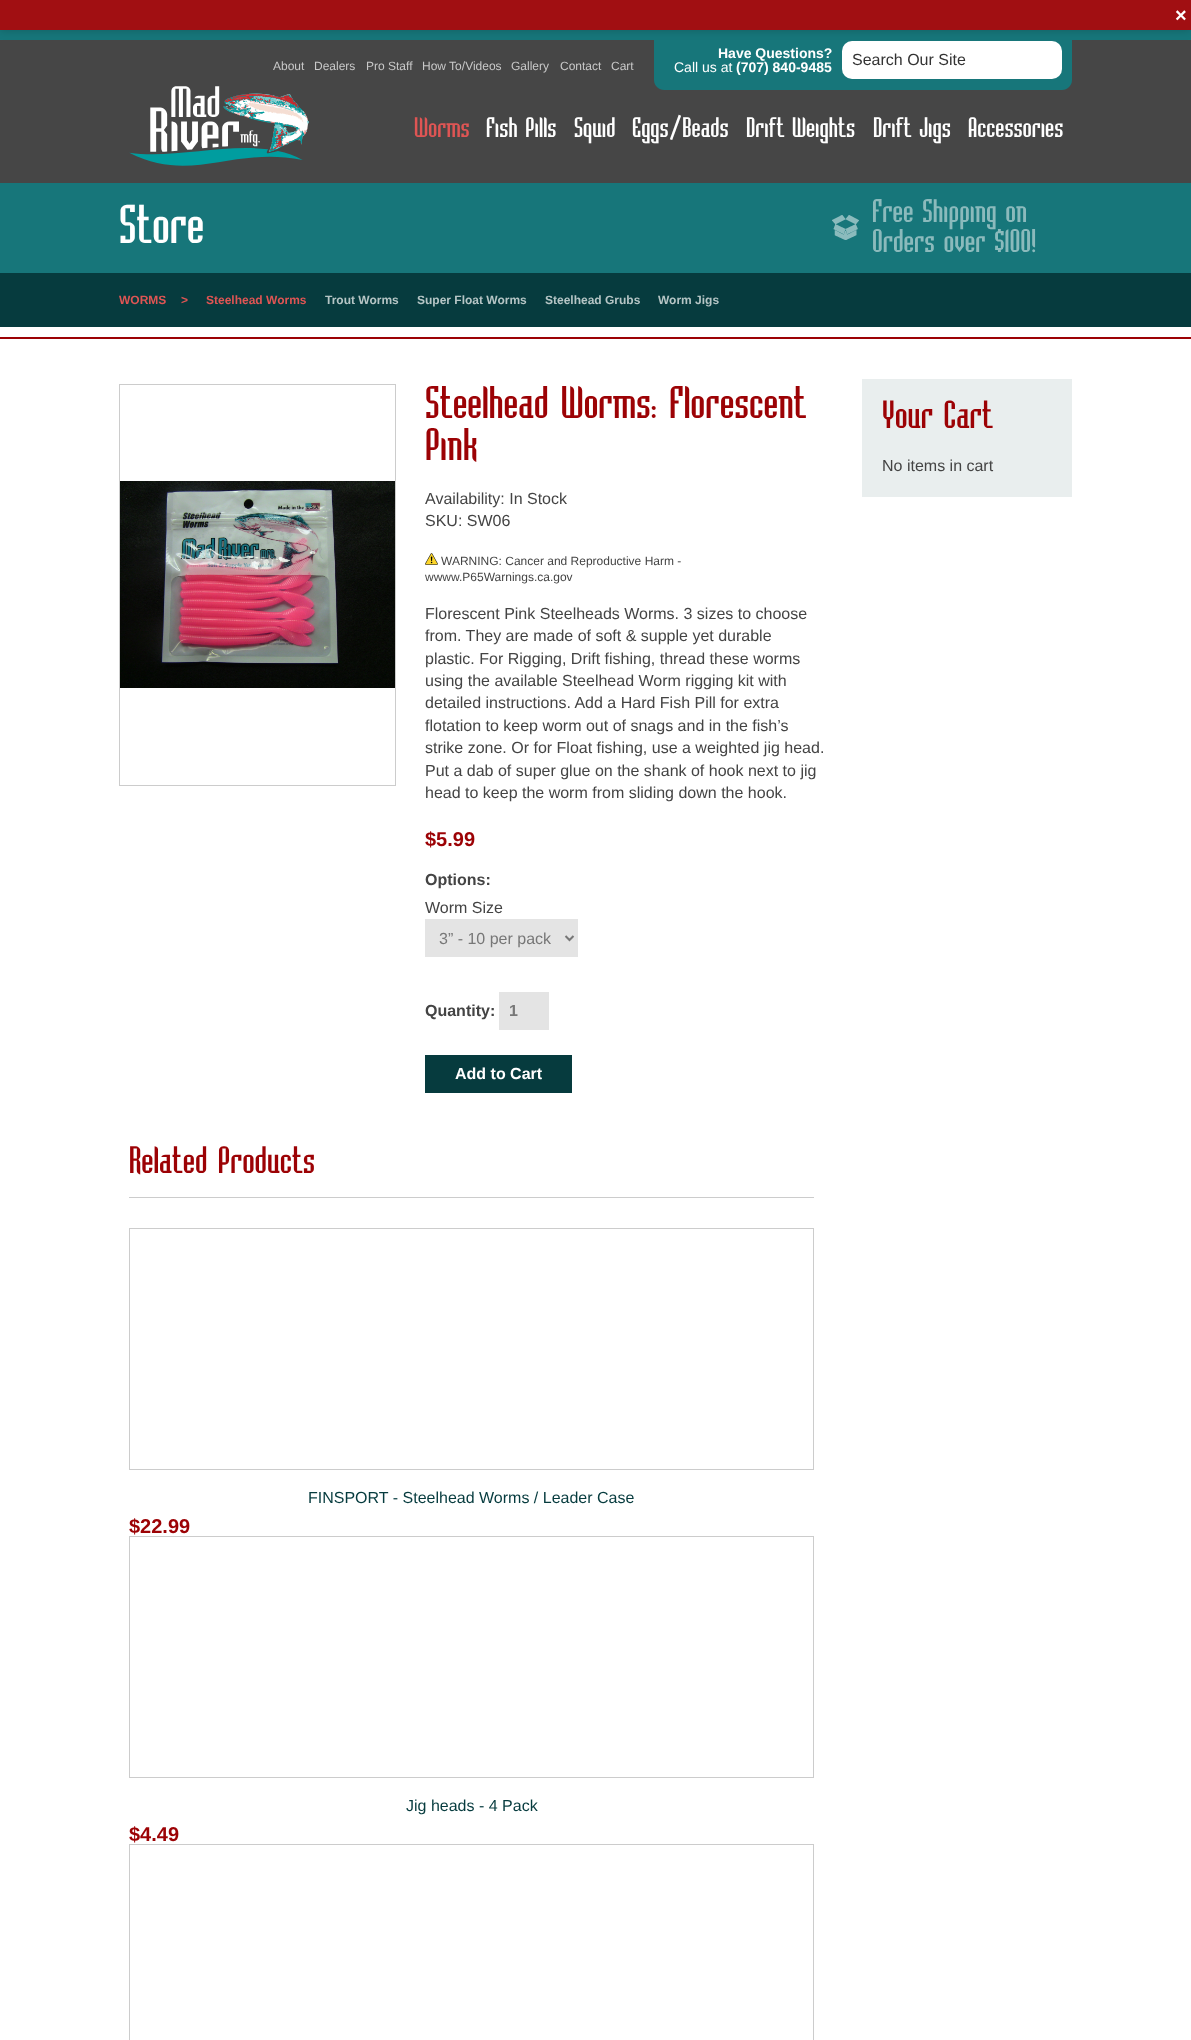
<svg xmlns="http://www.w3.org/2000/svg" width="1191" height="2040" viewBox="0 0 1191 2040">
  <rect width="100%" height="100%" fill="rgb(255,255,255)"/>
  <rect x="0" y="40" width="1191" height="143" fill="rgb(70,70,70)"/>
  <rect x="0" y="30" width="1191" height="10" fill="rgb(23,118,122)"/>
  <path d="M654 40H1072V80C1072 85.5 1067.5 90 1062 90H664C658.5 90 654 85.5 654 80Z" fill="rgb(23,118,122)"/>
  <rect x="842" y="41" width="220" height="38" rx="10" fill="rgb(255,255,255)"/>
  <rect x="0" y="0" width="1191" height="30" fill="rgba(0,0,0,0.2)" filter="blur(5px)"/>
  <rect x="0" y="0" width="1191" height="30" fill="rgb(161,15,18)"/>
  <text x="1175" y="22" font-family="Liberation Sans" font-size="20" font-weight="bold" fill="rgb(255,255,255)">×</text>
  <g font-family="Liberation Sans" font-size="12" fill="rgb(200,200,200)">
    <text x="273" y="70">About</text>
    <text x="314" y="70">Dealers</text>
    <text x="366" y="70">Pro Staff</text>
    <text x="422" y="70">How To/Videos</text>
    <text x="511" y="70">Gallery</text>
    <text x="560" y="70">Contact</text>
    <text x="611" y="70">Cart</text>
  </g>
  <text x="718" y="58" font-family="Liberation Sans" font-size="14" font-weight="bold" fill="rgb(255,255,255)">Have Questions?</text>
  <text x="674" y="72" font-family="Liberation Sans" font-size="14" fill="rgb(255,255,255)">Call us at</text>
  <text x="736" y="72" font-family="Liberation Sans" font-size="14" font-weight="bold" fill="rgb(255,255,255)">(707) 840-9485</text>
  <text x="852" y="65" font-family="Liberation Sans" font-size="16" fill="rgb(51,51,51)">Search Our Site</text>
  <image x="129" y="86" width="180" height="80" href="pic1.png"/>
  <text x="414" y="137" font-family="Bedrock" font-size="26" fill="rgb(223,85,84)">Worms</text>
  <g font-family="Bedrock" font-size="26" fill="rgb(255,255,255)">
    <text x="486" y="137">Fish Pills</text>
    <text x="574" y="137">Squid</text>
    <text x="632" y="137">Eggs/Beads</text>
    <text x="746" y="137">Drift Weights</text>
    <text x="873" y="137">Drift Jigs</text>
    <text x="968" y="137">Accessories</text>
  </g>
  <rect x="0" y="183" width="1191" height="90" fill="rgb(23,118,122)"/>
  <text x="119" y="243" font-family="Bedrock" font-size="50" fill="rgb(255,255,255)">Store</text>
  <image x="832" y="215" width="27" height="25" href="pic2.png"/>
  <g font-family="Bedrock" font-size="30" fill="rgb(139,186,188)">
    <text>
      <tspan x="872" y="222">Free Shipping on</tspan>
      <tspan x="872" y="252">Orders over $100!</tspan>
    </text>
  </g>
  <rect x="0" y="273" width="1191" height="54" fill="rgb(6,59,62)"/>
  <g font-family="Liberation Sans" font-size="12" font-weight="bold" fill="rgb(223,85,84)">
    <text x="119" y="304">WORMS</text>
    <text x="181" y="304">&gt;</text>
    <text x="206" y="304">Steelhead Worms</text>
  </g>
  <g font-family="Liberation Sans" font-size="12" font-weight="bold" fill="rgb(181,197,197)">
    <text x="325" y="304">Trout Worms</text>
    <text x="417" y="304">Super Float Worms</text>
    <text x="545" y="304">Steelhead Grubs</text>
    <text x="658" y="304">Worm Jigs</text>
  </g>
  <rect x="0" y="337" width="1191" height="2" fill="rgb(156,2,5)"/>
  <rect x="119.5" y="384.5" width="276" height="401" fill="none" stroke="rgb(204,204,204)"/>
  <image x="120" y="481" width="275" height="207" href="pic3.png"/>
  <g font-family="Bedrock" font-size="42" fill="rgb(156,2,5)">
    <text>
      <tspan x="425" y="418">Steelhead Worms: Florescent</tspan>
      <tspan x="425" y="460">Pink</tspan>
    </text>
  </g>
  <g font-family="Liberation Sans" font-size="16" fill="rgb(68,68,68)">
    <text>
      <tspan x="425" y="504">Availability: In Stock</tspan>
      <tspan x="425" y="526">SKU: SW06</tspan>
    </text>
  </g>
  <image x="425" y="553" width="13" height="12" href="pic4.png"/>
  <g font-family="Liberation Sans" font-size="12" fill="rgb(68,68,68)">
    <text x="441" y="565">WARNING: Cancer and Reproductive Harm -</text>
    <text x="425" y="581">wwww.P65Warnings.ca.gov</text>
  </g>
  <g font-family="Liberation Sans" font-size="16" fill="rgb(68,68,68)">
    <text>
      <tspan x="425" y="619">Florescent Pink Steelheads Worms. 3 sizes to choose</tspan>
      <tspan x="425" y="641">from. They are made of soft &amp; supple yet durable</tspan>
      <tspan x="425" y="664">plastic. For Rigging, Drift fishing, thread these worms</tspan>
      <tspan x="425" y="686">using the available Steelhead Worm rigging kit with</tspan>
      <tspan x="425" y="708">detailed instructions. Add a Hard Fish Pill for extra</tspan>
      <tspan x="425" y="731">flotation to keep worm out of snags and in the fish’s</tspan>
      <tspan x="425" y="753">strike zone. Or for Float fishing, use a weighted jig head.</tspan>
      <tspan x="425" y="776">Put a dab of super glue on the shank of hook next to jig</tspan>
      <tspan x="425" y="798">head to keep the worm from sliding down the hook.</tspan>
    </text>
  </g>
  <text x="425" y="846" font-family="Liberation Sans" font-size="20" font-weight="bold" fill="rgb(156,2,5)">$5.99</text>
  <text x="425" y="885" font-family="Liberation Sans" font-size="16" font-weight="bold" fill="rgb(68,68,68)">Options:</text>
  <text x="425" y="913" font-family="Liberation Sans" font-size="16" fill="rgb(68,68,68)">Worm Size</text>
  <rect x="425" y="919" width="153" height="38" fill="rgb(228,228,228)"/>
  <path d="M565.5 936L569.5 940L573.5 936" fill="none" stroke="rgb(119,119,119)" stroke-width="2"/>
  <text x="439" y="944" font-family="Liberation Sans" font-size="16" fill="rgb(119,119,119)">3” - 10 per pack</text>
  <text x="425" y="1016" font-family="Liberation Sans" font-size="16" font-weight="bold" fill="rgb(68,68,68)">Quantity:</text>
  <rect x="499" y="992" width="50" height="38" fill="rgb(228,228,228)"/>
  <text x="509" y="1016" font-family="Liberation Sans" font-size="16" font-weight="bold" fill="rgb(119,119,119)">1</text>
  <rect x="425" y="1055" width="147" height="38" fill="rgb(6,59,62)"/>
  <text x="455" y="1079" font-family="Liberation Sans" font-size="16" font-weight="bold" fill="rgb(255,255,255)">Add to Cart</text>
  <rect x="129" y="1197" width="685" height="1" fill="rgb(204,204,204)"/>
  <text x="129" y="1173" font-family="Bedrock" font-size="35" fill="rgb(156,2,5)">Related Products</text>
  <rect x="129.5" y="1228.5" width="684" height="241" fill="none" stroke="rgb(204,204,204)"/>
  <text x="308" y="1503" font-family="Liberation Sans" font-size="16" fill="rgb(6,59,62)">FINSPORT - Steelhead Worms / Leader Case</text>
  <text x="129" y="1533" font-family="Liberation Sans" font-size="20" font-weight="bold" fill="rgb(156,2,5)">$22.99</text>
  <rect x="129.5" y="1536.5" width="684" height="241" fill="none" stroke="rgb(204,204,204)"/>
  <text x="406" y="1811" font-family="Liberation Sans" font-size="16" fill="rgb(6,59,62)">Jig heads - 4 Pack</text>
  <text x="129" y="1841" font-family="Liberation Sans" font-size="20" font-weight="bold" fill="rgb(156,2,5)">$4.49</text>
  <rect x="129.5" y="1844.5" width="684" height="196" fill="none" stroke="rgb(204,204,204)"/>
  <rect x="862" y="379" width="210" height="118" fill="rgb(233,238,238)"/>
  <text x="882" y="428" font-family="Bedrock" font-size="36" fill="rgb(156,2,5)">Your Cart</text>
  <text x="882" y="471" font-family="Liberation Sans" font-size="16" fill="rgb(68,68,68)">No items in cart</text>
</svg>
